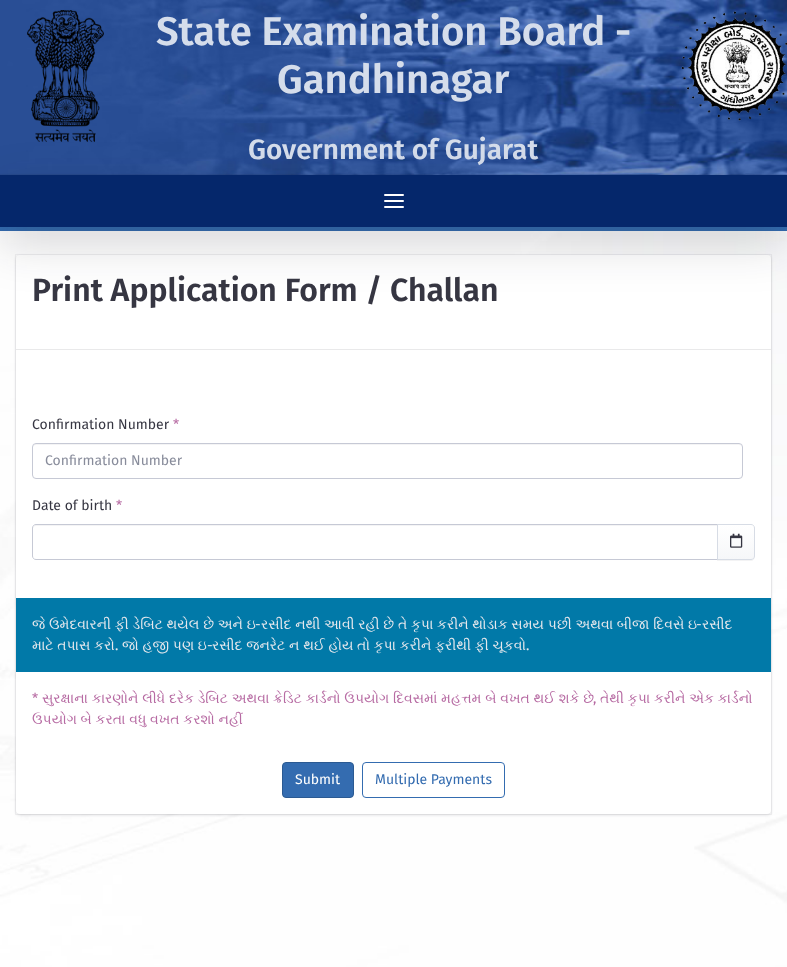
<svg xmlns="http://www.w3.org/2000/svg" width="787" height="967" viewBox="0 0 787 967">
  <defs>
    <clipPath id="clip1"><path d="M717 524H751C753 524 755 526 755 528V556C755 558 753 560 751 560H717Z"/></clipPath>
    <linearGradient id="g1" gradientUnits="userSpaceOnUse" x1="736" y1="525" x2="736" y2="559"><stop offset="0" stop-color="rgb(255,255,255)"/><stop offset="1" stop-color="rgb(246,247,249)"/></linearGradient>
  </defs>
  <rect width="100%" height="100%" fill="rgb(255,255,255)"/>
  <image x="0" y="0" width="787" height="175" href="pic1.png"/>
  <image x="27" y="10" width="77" height="132" href="pic2.png"/>
  <g font-family="Fira Sans" font-size="40" font-weight="600" fill="rgb(213,221,235)">
    <text x="156" y="45">State Examination Board -</text>
    <text x="277" y="93">Gandhinagar</text>
  </g>
  <text x="248" y="159" font-family="Fira Sans" font-size="28" font-weight="600" fill="rgb(213,221,235)">Government of Gujarat</text>
  <image x="672" y="11" width="115" height="110" href="pic3.png"/>
  <rect x="0" y="176" width="787" height="56" fill="rgba(20,20,31,0.15)" filter="blur(1.5px)"/>
  <rect x="-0.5" y="174.5" width="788" height="57" fill="none" stroke="rgba(20,20,31,0.05)"/>
  <rect x="0" y="227" width="787" height="4" fill="rgb(52,108,176)"/>
  <image x="0" y="231" width="787" height="736" href="pic4.png"/>
  <rect x="16" y="256" width="755" height="559" rx="4" fill="rgba(20,20,31,0.15)" filter="blur(1.5px)"/>
  <rect x="15.5" y="254.5" width="756" height="560" fill="none" stroke="rgba(20,20,31,0.05)"/>
  <rect x="16" y="255" width="755" height="559" rx="4" fill="rgb(255,255,255)"/>
  <rect x="0" y="191" width="787" height="52" fill="rgba(20,20,31,0.18)" filter="blur(24px)"/>
  <rect x="0" y="175" width="787" height="52" fill="rgb(5,39,107)"/>
  <rect x="384" y="200" width="20" height="2" rx="1" fill="rgb(255,255,255)"/>
  <rect x="384" y="194" width="20" height="2" rx="1" fill="rgb(255,255,255)"/>
  <rect x="384" y="206" width="20" height="2" rx="1" fill="rgb(255,255,255)"/>
  <text x="32" y="301" font-family="Fira Sans" font-size="32" font-weight="600" fill="rgb(54,54,66)">Print Application Form / Challan</text>
  <rect x="16" y="349" width="755" height="1" fill="rgb(233,233,234)"/>
  <text x="32" y="429" font-family="Fira Sans" font-size="14" fill="rgb(54,54,66)">Confirmation Number</text>
  <text x="173" y="429" font-family="Fira Sans" font-size="14" fill="rgb(183,107,163)">*</text>
  <path d="M36 445H739C741 445 742 446 742 448C742 446 741 444 739 444H36C34 444 33 446 33 448C33 446 34 445 36 445Z" fill="rgb(244,244,245)"/>
  <rect x="32.5" y="443.5" width="710" height="35" rx="3.5" fill="none" stroke="rgb(198,201,213)"/>
  <text x="45" y="465" font-family="Fira Sans" font-size="14" fill="rgb(136,140,155)">Confirmation Number</text>
  <text x="32" y="510" font-family="Fira Sans" font-size="14" fill="rgb(54,54,66)">Date of birth</text>
  <text x="116" y="510" font-family="Fira Sans" font-size="14" fill="rgb(183,107,163)">*</text>
  <path d="M36 526H717V525H36C34 525 33 526 33 528V529C33 527 34 526 36 526Z" fill="rgb(244,244,245)"/>
  <path d="M36 524.5H717.5V559.5H36C34 559.5 32.5 558 32.5 556V528C32.5 526 34 524.5 36 524.5Z" fill="none" stroke="rgb(198,201,213)"/>
  <path d="M717 560V561H751C753 561 755 559 755 557V556C755 558 753 560 751 560Z" fill="rgb(243,243,244)"/>
  <g clip-path="url(#clip1)">
    <rect x="718" y="525" width="37" height="34" fill="url(#g1)"/>
  </g>
  <path d="M717.5 524.5H751C753 524.5 754.5 526 754.5 528V556C754.5 558 753 559.5 751 559.5H717.5Z" fill="none" stroke="rgb(215,220,229)"/>
  <image x="730" y="533" width="13" height="15" href="pic5.png"/>
  <rect x="16" y="598" width="755" height="74" fill="rgb(1,121,168)"/>
  <text x="32" y="629" word-spacing="0.25" font-family="FreeSerif" font-size="14" fill="rgb(230,232,237)">જે ઉમેદવારની ફી ડેબિટ થયેલ છે અને ઇ</text>
  <text x="255" y="629" font-family="Fira Sans" font-size="14" fill="rgb(230,232,237)">-</text>
  <text x="261" y="629" word-spacing="0.25" font-family="FreeSerif" font-size="14" fill="rgb(230,232,237)">રસીદ નથી આવી રહી છે તે કૃપા કરીને થોડાક સમય પછી અથવા બીજા દિવસે ઇ</text>
  <text x="696" y="629" font-family="Fira Sans" font-size="14" fill="rgb(230,232,237)">-</text>
  <g font-family="FreeSerif" font-size="14" fill="rgb(230,232,237)">
    <text x="702" y="629">રસીદ</text>
    <text x="32" y="650" word-spacing="0.25">માટે તપાસ કરો</text>
    <text x="122" y="650" word-spacing="0.25">જો હજી પણ ઇ</text>
  </g>
  <text x="207" y="650" font-family="Fira Sans" font-size="14" fill="rgb(230,232,237)">-</text>
  <text x="212" y="650" word-spacing="0.25" font-family="FreeSerif" font-size="14" fill="rgb(230,232,237)">રસીદ જનરેટ ન થઈ હોય તો કૃપા કરીને ફરીથી ફી ચૂકવો</text>
  <g font-family="Fira Sans" font-size="14" fill="rgb(230,232,237)">
    <text x="115" y="650">.</text>
    <text x="526" y="650">.</text>
  </g>
  <text x="32" y="703" font-family="Fira Sans" font-size="14" fill="rgb(183,107,163)">*</text>
  <text x="42" y="703" word-spacing="0.25" font-family="FreeSerif" font-size="14" fill="rgb(183,107,163)">સુરક્ષાના કારણોને લીધે દરેક ડેબિટ અથવા ક્રેડિટ કાર્ડનો ઉપયોગ દિવસમાં મહત્તમ બે વખત થઈ શકે છે</text>
  <text x="593" y="703" font-family="Fira Sans" font-size="14" fill="rgb(183,107,163)">,</text>
  <g font-family="FreeSerif" font-size="14" fill="rgb(183,107,163)">
    <text x="600" y="703" word-spacing="0.25">તેથી કૃપા કરીને એક કાર્ડનો</text>
    <text x="32" y="724" word-spacing="0.25">ઉપયોગ બે કરતા વધુ વખત કરશો નહીં</text>
  </g>
  <rect x="282.5" y="762.5" width="71" height="35" rx="3.5" fill="rgb(52,108,176)" stroke="rgb(43,90,146)"/>
  <text x="295" y="784" font-family="Fira Sans" font-size="14" fill="rgb(255,255,255)">Submit</text>
  <rect x="362.5" y="762.5" width="142" height="35" rx="3.5" fill="none" stroke="rgb(52,108,176)"/>
  <text x="375" y="784" font-family="Fira Sans" font-size="14" fill="rgb(52,108,176)">Multiple Payments</text>
</svg>
